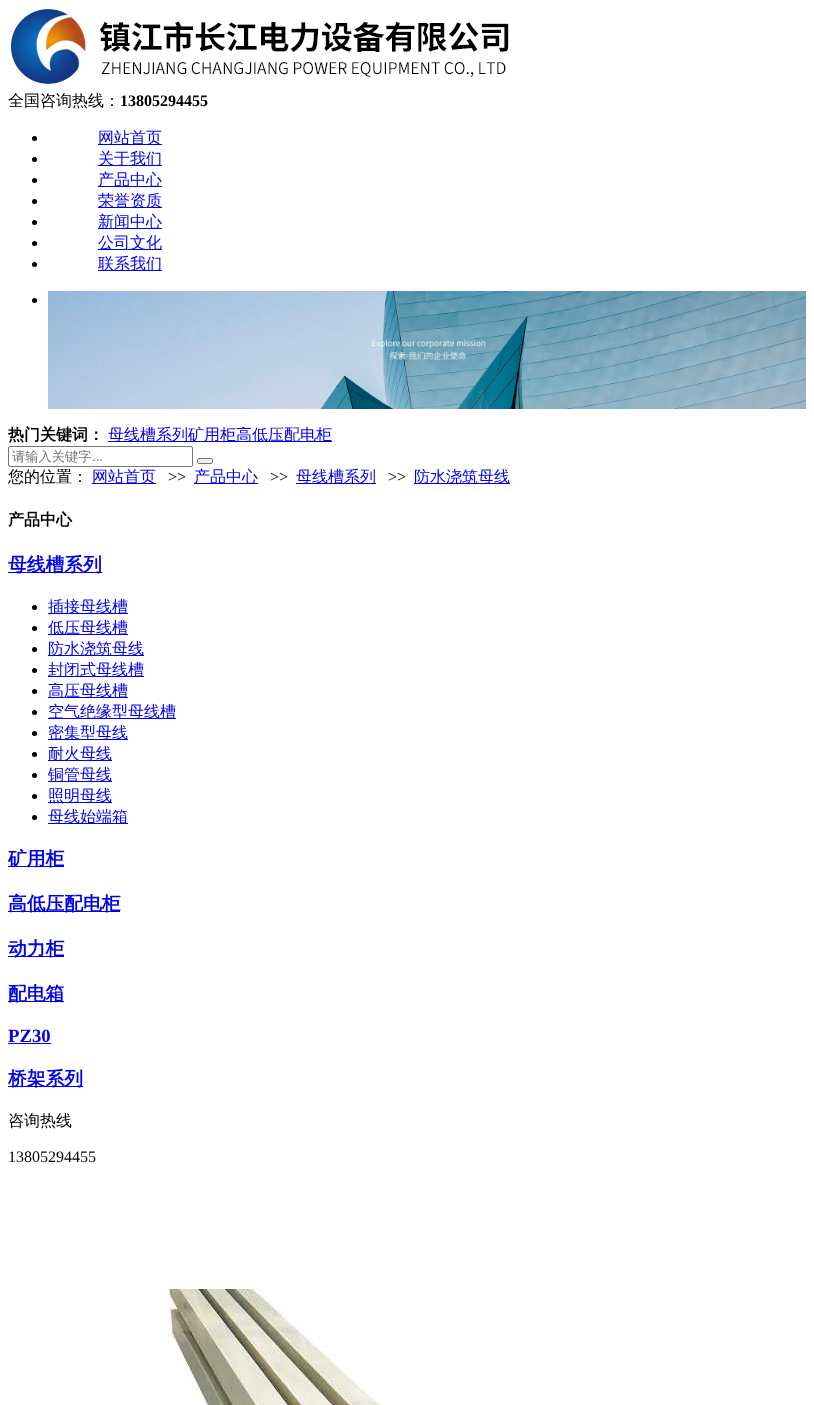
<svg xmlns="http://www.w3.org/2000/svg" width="814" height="1405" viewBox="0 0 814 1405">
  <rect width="100%" height="100%" fill="rgb(255,255,255)"/>
  <image x="11" y="9" width="498" height="75" href="pic1.png"/>
  <text x="8" y="106" font-family="WenQuanYi Zen Hei" font-size="16" font-weight="500" fill="rgb(0,0,0)">全国咨询热线：</text>
  <text x="120" y="106" font-family="Liberation Serif" font-size="16" font-weight="bold" fill="rgb(0,0,0)">13805294455</text>
  <circle cx="34.5" cy="138.5" r="2.5" fill="rgb(0,0,0)"/>
  <rect x="98" y="144" width="64" height="1" fill="rgb(0,0,238)"/>
  <text x="98" y="143" font-family="WenQuanYi Zen Hei" font-size="16" font-weight="500" fill="rgb(0,0,238)">网站首页</text>
  <circle cx="34.5" cy="159.5" r="2.5" fill="rgb(0,0,0)"/>
  <rect x="98" y="165" width="64" height="1" fill="rgb(0,0,238)"/>
  <text x="98" y="164" font-family="WenQuanYi Zen Hei" font-size="16" font-weight="500" fill="rgb(0,0,238)">关于我们</text>
  <circle cx="34.5" cy="180.5" r="2.5" fill="rgb(0,0,0)"/>
  <rect x="98" y="186" width="64" height="1" fill="rgb(0,0,238)"/>
  <text x="98" y="185" font-family="WenQuanYi Zen Hei" font-size="16" font-weight="500" fill="rgb(0,0,238)">产品中心</text>
  <circle cx="34.5" cy="201.5" r="2.5" fill="rgb(0,0,0)"/>
  <rect x="98" y="207" width="64" height="1" fill="rgb(0,0,238)"/>
  <text x="98" y="206" font-family="WenQuanYi Zen Hei" font-size="16" font-weight="500" fill="rgb(0,0,238)">荣誉资质</text>
  <circle cx="34.5" cy="222.5" r="2.5" fill="rgb(0,0,0)"/>
  <rect x="98" y="228" width="64" height="1" fill="rgb(0,0,238)"/>
  <text x="98" y="227" font-family="WenQuanYi Zen Hei" font-size="16" font-weight="500" fill="rgb(0,0,238)">新闻中心</text>
  <circle cx="34.5" cy="243.5" r="2.5" fill="rgb(0,0,0)"/>
  <rect x="98" y="249" width="64" height="1" fill="rgb(0,0,238)"/>
  <text x="98" y="248" font-family="WenQuanYi Zen Hei" font-size="16" font-weight="500" fill="rgb(0,0,238)">公司文化</text>
  <circle cx="34.5" cy="264.5" r="2.5" fill="rgb(0,0,0)"/>
  <rect x="98" y="270" width="64" height="1" fill="rgb(0,0,238)"/>
  <text x="98" y="269" font-family="WenQuanYi Zen Hei" font-size="16" font-weight="500" fill="rgb(0,0,238)">联系我们</text>
  <circle cx="34.5" cy="300.5" r="2.5" fill="rgb(0,0,0)"/>
  <image x="48" y="291" width="758" height="118" href="pic2.png"/>
  <text x="8" y="440" font-family="WenQuanYi Zen Hei" font-size="16" font-weight="bold" fill="rgb(0,0,0)">热门关键词：</text>
  <rect x="108" y="441" width="224" height="1" fill="rgb(0,0,238)"/>
  <text x="108" y="440" font-family="WenQuanYi Zen Hei" font-size="16" font-weight="500" fill="rgb(0,0,238)">母线槽系列矿用柜高低压配电柜</text>
  <rect x="8.5" y="446.5" width="184" height="20" rx="1.5" fill="none" stroke="rgb(118,118,118)"/>
  <text x="12" y="461" font-family="WenQuanYi Zen Hei" font-size="13.25" font-weight="500" fill="rgb(117,117,117)">请输入关键字</text>
  <text x="92" y="461" font-family="Liberation Sans" font-size="13.25" fill="rgb(117,117,117)">...</text>
  <rect x="197.5" y="458.5" width="15" height="5" rx="1.5" fill="rgb(239,239,239)" stroke="rgb(118,118,118)"/>
  <text x="8" y="482" font-family="WenQuanYi Zen Hei" font-size="16" font-weight="500" fill="rgb(0,0,0)">您的位置：</text>
  <rect x="92" y="483" width="64" height="1" fill="rgb(0,0,238)"/>
  <text x="92" y="482" font-family="WenQuanYi Zen Hei" font-size="16" font-weight="500" fill="rgb(0,0,238)">网站首页</text>
  <text x="168" y="482" font-family="Liberation Serif" font-size="16" fill="rgb(0,0,0)">&gt;&gt;</text>
  <rect x="194" y="483" width="64" height="1" fill="rgb(0,0,238)"/>
  <text x="194" y="482" font-family="WenQuanYi Zen Hei" font-size="16" font-weight="500" fill="rgb(0,0,238)">产品中心</text>
  <text x="270" y="482" font-family="Liberation Serif" font-size="16" fill="rgb(0,0,0)">&gt;&gt;</text>
  <rect x="296" y="483" width="80" height="1" fill="rgb(0,0,238)"/>
  <text x="296" y="482" font-family="WenQuanYi Zen Hei" font-size="16" font-weight="500" fill="rgb(0,0,238)">母线槽系列</text>
  <text x="388" y="482" font-family="Liberation Serif" font-size="16" fill="rgb(0,0,0)">&gt;&gt;</text>
  <rect x="414" y="483" width="96" height="1" fill="rgb(0,0,238)"/>
  <text x="414" y="482" font-family="WenQuanYi Zen Hei" font-size="16" font-weight="500" fill="rgb(0,0,238)">防水浇筑母线</text>
  <text x="8" y="525" font-family="WenQuanYi Zen Hei" font-size="16" font-weight="bold" fill="rgb(0,0,0)">产品中心</text>
  <rect x="8" y="572" width="94" height="1" fill="rgb(0,0,238)"/>
  <text x="8" y="571" font-family="WenQuanYi Zen Hei" font-size="18.75" font-weight="bold" fill="rgb(0,0,238)">母线槽系列</text>
  <circle cx="34.5" cy="607.5" r="2.5" fill="rgb(0,0,0)"/>
  <rect x="48" y="613" width="80" height="1" fill="rgb(0,0,238)"/>
  <text x="48" y="612" font-family="WenQuanYi Zen Hei" font-size="16" font-weight="500" fill="rgb(0,0,238)">插接母线槽</text>
  <circle cx="34.5" cy="628.5" r="2.5" fill="rgb(0,0,0)"/>
  <rect x="48" y="634" width="80" height="1" fill="rgb(0,0,238)"/>
  <text x="48" y="633" font-family="WenQuanYi Zen Hei" font-size="16" font-weight="500" fill="rgb(0,0,238)">低压母线槽</text>
  <circle cx="34.5" cy="649.5" r="2.5" fill="rgb(0,0,0)"/>
  <rect x="48" y="655" width="96" height="1" fill="rgb(0,0,238)"/>
  <text x="48" y="654" font-family="WenQuanYi Zen Hei" font-size="16" font-weight="500" fill="rgb(0,0,238)">防水浇筑母线</text>
  <circle cx="34.5" cy="670.5" r="2.5" fill="rgb(0,0,0)"/>
  <rect x="48" y="676" width="96" height="1" fill="rgb(0,0,238)"/>
  <text x="48" y="675" font-family="WenQuanYi Zen Hei" font-size="16" font-weight="500" fill="rgb(0,0,238)">封闭式母线槽</text>
  <circle cx="34.5" cy="691.5" r="2.5" fill="rgb(0,0,0)"/>
  <rect x="48" y="697" width="80" height="1" fill="rgb(0,0,238)"/>
  <text x="48" y="696" font-family="WenQuanYi Zen Hei" font-size="16" font-weight="500" fill="rgb(0,0,238)">高压母线槽</text>
  <circle cx="34.5" cy="712.5" r="2.5" fill="rgb(0,0,0)"/>
  <rect x="48" y="718" width="128" height="1" fill="rgb(0,0,238)"/>
  <text x="48" y="717" font-family="WenQuanYi Zen Hei" font-size="16" font-weight="500" fill="rgb(0,0,238)">空气绝缘型母线槽</text>
  <circle cx="34.5" cy="733.5" r="2.5" fill="rgb(0,0,0)"/>
  <rect x="48" y="739" width="80" height="1" fill="rgb(0,0,238)"/>
  <text x="48" y="738" font-family="WenQuanYi Zen Hei" font-size="16" font-weight="500" fill="rgb(0,0,238)">密集型母线</text>
  <circle cx="34.5" cy="754.5" r="2.5" fill="rgb(0,0,0)"/>
  <rect x="48" y="760" width="64" height="1" fill="rgb(0,0,238)"/>
  <text x="48" y="759" font-family="WenQuanYi Zen Hei" font-size="16" font-weight="500" fill="rgb(0,0,238)">耐火母线</text>
  <circle cx="34.5" cy="775.5" r="2.5" fill="rgb(0,0,0)"/>
  <rect x="48" y="781" width="64" height="1" fill="rgb(0,0,238)"/>
  <text x="48" y="780" font-family="WenQuanYi Zen Hei" font-size="16" font-weight="500" fill="rgb(0,0,238)">铜管母线</text>
  <circle cx="34.5" cy="796.5" r="2.5" fill="rgb(0,0,0)"/>
  <rect x="48" y="802" width="64" height="1" fill="rgb(0,0,238)"/>
  <text x="48" y="801" font-family="WenQuanYi Zen Hei" font-size="16" font-weight="500" fill="rgb(0,0,238)">照明母线</text>
  <circle cx="34.5" cy="817.5" r="2.5" fill="rgb(0,0,0)"/>
  <rect x="48" y="823" width="80" height="1" fill="rgb(0,0,238)"/>
  <text x="48" y="822" font-family="WenQuanYi Zen Hei" font-size="16" font-weight="500" fill="rgb(0,0,238)">母线始端箱</text>
  <rect x="8" y="866" width="56" height="1" fill="rgb(0,0,238)"/>
  <text x="8" y="865" font-family="WenQuanYi Zen Hei" font-size="18.75" font-weight="bold" fill="rgb(0,0,238)">矿用柜</text>
  <rect x="8" y="911" width="112" height="1" fill="rgb(0,0,238)"/>
  <text x="8" y="910" font-family="WenQuanYi Zen Hei" font-size="18.75" font-weight="bold" fill="rgb(0,0,238)">高低压配电柜</text>
  <rect x="8" y="956" width="56" height="1" fill="rgb(0,0,238)"/>
  <text x="8" y="955" font-family="WenQuanYi Zen Hei" font-size="18.75" font-weight="bold" fill="rgb(0,0,238)">动力柜</text>
  <rect x="8" y="1001" width="56" height="1" fill="rgb(0,0,238)"/>
  <text x="8" y="1000" font-family="WenQuanYi Zen Hei" font-size="18.75" font-weight="bold" fill="rgb(0,0,238)">配电箱</text>
  <text x="8" y="1042" font-family="Liberation Serif" font-size="18.75" font-weight="bold" fill="rgb(0,0,238)">PZ30</text>
  <rect x="8" y="1043" width="43" height="1" fill="rgb(0,0,238)"/>
  <rect x="8" y="1086" width="75" height="1" fill="rgb(0,0,238)"/>
  <text x="8" y="1085" font-family="WenQuanYi Zen Hei" font-size="18.75" font-weight="bold" fill="rgb(0,0,238)">桥架系列</text>
  <text x="8" y="1126" font-family="WenQuanYi Zen Hei" font-size="16" font-weight="500" fill="rgb(0,0,0)">咨询热线</text>
  <text x="8" y="1162" font-family="Liberation Serif" font-size="16" fill="rgb(0,0,0)">13805294455</text>
  <image x="160" y="1289" width="224" height="116" href="pic3.png"/>
</svg>
